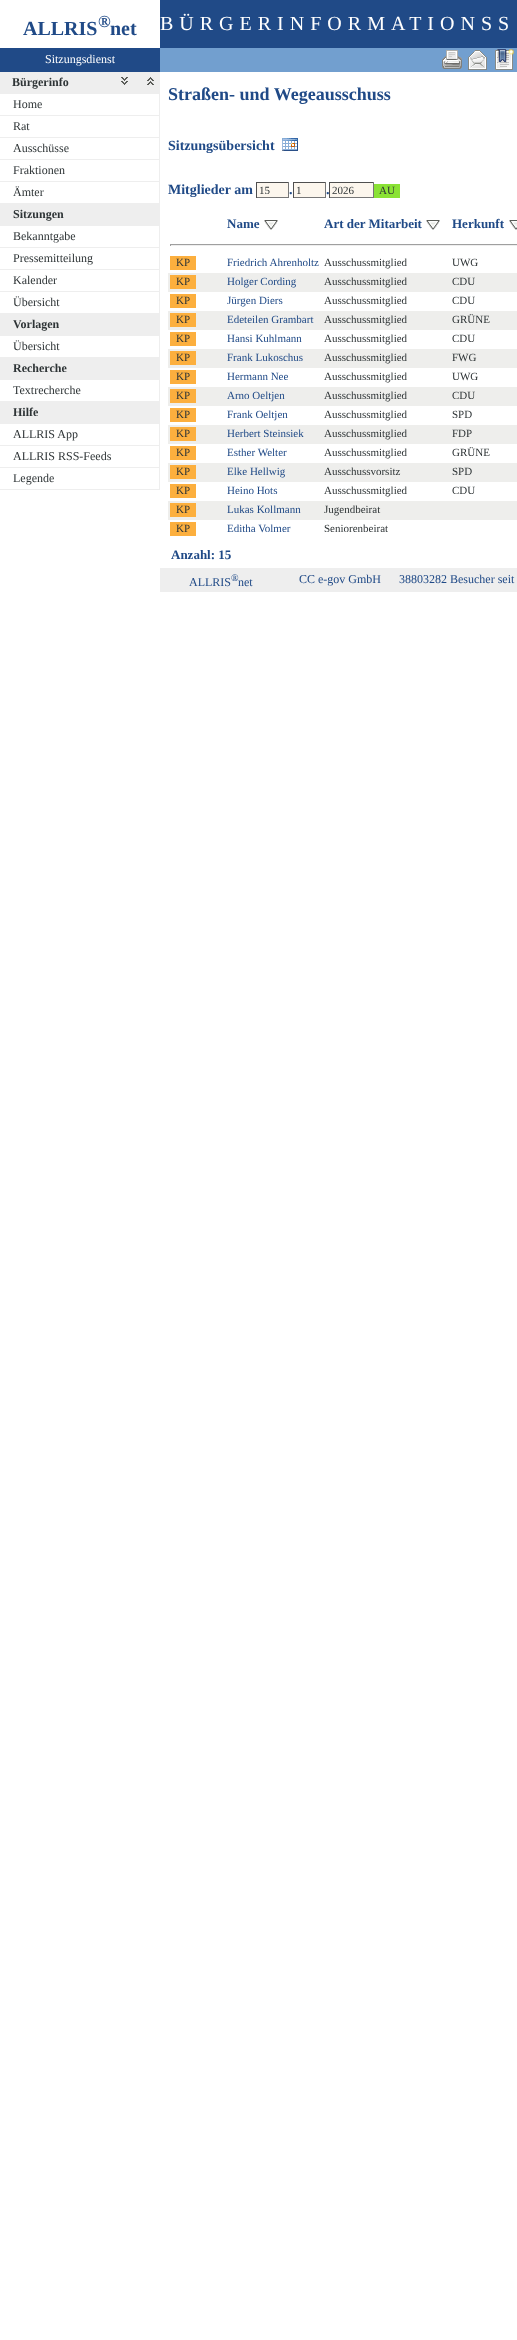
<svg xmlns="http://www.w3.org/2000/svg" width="517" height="2340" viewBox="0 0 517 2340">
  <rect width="100%" height="100%" fill="rgb(255,255,255)"/>
  <rect x="0" y="72" width="160" height="418" fill="rgb(238,238,238)"/>
  <text x="23" y="35" font-family="Liberation Serif" font-size="20" font-weight="bold" fill="rgb(32,74,135)">ALLRIS</text>
  <text x="98" y="27" font-family="Liberation Serif" font-size="17" font-weight="bold" fill="rgb(32,74,135)">®</text>
  <text x="110" y="35" font-family="Liberation Serif" font-size="20" font-weight="bold" fill="rgb(32,74,135)">net</text>
  <rect x="0" y="48" width="160" height="24" fill="rgb(32,74,135)"/>
  <text x="45" y="63" font-family="Liberation Serif" font-size="12" fill="rgb(255,255,255)">Sitzungsdienst</text>
  <text x="12" y="86" font-family="Liberation Serif" font-size="12" font-weight="bold" fill="rgb(46,52,54)">Bürgerinfo</text>
  <image x="121" y="77" width="7" height="8" href="pic1.png"/>
  <image x="147" y="77" width="7" height="8" href="pic2.png"/>
  <rect x="0" y="94" width="159" height="21" fill="rgb(255,255,255)"/>
  <text x="13" y="108" font-family="Liberation Serif" font-size="12" fill="rgb(46,52,54)">Home</text>
  <rect x="0" y="116" width="159" height="21" fill="rgb(255,255,255)"/>
  <text x="13" y="130" font-family="Liberation Serif" font-size="12" fill="rgb(46,52,54)">Rat</text>
  <rect x="0" y="138" width="159" height="21" fill="rgb(255,255,255)"/>
  <text x="13" y="152" font-family="Liberation Serif" font-size="12" fill="rgb(46,52,54)">Ausschüsse</text>
  <rect x="0" y="160" width="159" height="21" fill="rgb(255,255,255)"/>
  <text x="13" y="174" font-family="Liberation Serif" font-size="12" fill="rgb(46,52,54)">Fraktionen</text>
  <rect x="0" y="182" width="159" height="21" fill="rgb(255,255,255)"/>
  <text x="13" y="196" font-family="Liberation Serif" font-size="12" fill="rgb(46,52,54)">Ämter</text>
  <text x="13" y="218" font-family="Liberation Serif" font-size="12" font-weight="bold" fill="rgb(46,52,54)">Sitzungen</text>
  <rect x="0" y="226" width="159" height="21" fill="rgb(255,255,255)"/>
  <text x="13" y="240" font-family="Liberation Serif" font-size="12" fill="rgb(46,52,54)">Bekanntgabe</text>
  <rect x="0" y="248" width="159" height="21" fill="rgb(255,255,255)"/>
  <text x="13" y="262" font-family="Liberation Serif" font-size="12" fill="rgb(46,52,54)">Pressemitteilung</text>
  <rect x="0" y="270" width="159" height="21" fill="rgb(255,255,255)"/>
  <text x="13" y="284" font-family="Liberation Serif" font-size="12" fill="rgb(46,52,54)">Kalender</text>
  <rect x="0" y="292" width="159" height="21" fill="rgb(255,255,255)"/>
  <text x="13" y="306" font-family="Liberation Serif" font-size="12" fill="rgb(46,52,54)">Übersicht</text>
  <text x="13" y="328" font-family="Liberation Serif" font-size="12" font-weight="bold" fill="rgb(46,52,54)">Vorlagen</text>
  <rect x="0" y="336" width="159" height="21" fill="rgb(255,255,255)"/>
  <text x="13" y="350" font-family="Liberation Serif" font-size="12" fill="rgb(46,52,54)">Übersicht</text>
  <text x="13" y="372" font-family="Liberation Serif" font-size="12" font-weight="bold" fill="rgb(46,52,54)">Recherche</text>
  <rect x="0" y="380" width="159" height="21" fill="rgb(255,255,255)"/>
  <text x="13" y="394" font-family="Liberation Serif" font-size="12" fill="rgb(46,52,54)">Textrecherche</text>
  <text x="13" y="416" font-family="Liberation Serif" font-size="12" font-weight="bold" fill="rgb(46,52,54)">Hilfe</text>
  <rect x="0" y="424" width="159" height="21" fill="rgb(255,255,255)"/>
  <text x="13" y="438" font-family="Liberation Serif" font-size="12" fill="rgb(46,52,54)">ALLRIS App</text>
  <rect x="0" y="446" width="159" height="21" fill="rgb(255,255,255)"/>
  <text x="13" y="460" font-family="Liberation Serif" font-size="12" fill="rgb(46,52,54)">ALLRIS RSS-Feeds</text>
  <rect x="0" y="468" width="159" height="21" fill="rgb(255,255,255)"/>
  <text x="13" y="482" font-family="Liberation Serif" font-size="12" fill="rgb(46,52,54)">Legende</text>
  <rect x="160" y="0" width="357" height="48" fill="rgb(32,74,135)"/>
  <text x="160" y="30" font-family="Liberation Serif" font-size="20" letter-spacing="6" fill="rgb(255,255,255)">BÜRGERINFORMATIONSS</text>
  <rect x="160" y="48" width="357" height="24" fill="rgb(114,159,207)"/>
  <image x="442" y="50" width="20" height="19" href="pic3.png"/>
  <image x="468" y="50" width="19" height="20" href="pic4.png"/>
  <image x="495" y="49" width="19" height="21" href="pic5.png"/>
  <text x="168" y="100" font-family="Liberation Serif" font-size="18" font-weight="bold" fill="rgb(32,74,135)">Straßen- und Wegeausschuss</text>
  <text x="168" y="150" font-family="Liberation Serif" font-size="14" font-weight="bold" fill="rgb(32,74,135)">Sitzungsübersicht</text>
  <image x="282" y="138" width="16" height="13" href="pic6.png"/>
  <text x="168" y="194" font-family="Liberation Serif" font-size="14" font-weight="bold" fill="rgb(32,74,135)">Mitglieder am</text>
  <rect x="257" y="183" width="31" height="14" fill="rgb(252,246,237)"/>
  <rect x="256" y="182" width="33" height="1" fill="rgb(79,79,79)"/>
  <rect x="288" y="182" width="1" height="16" fill="rgb(118,118,118)"/>
  <rect x="256" y="197" width="33" height="1" fill="rgb(118,118,118)"/>
  <rect x="256" y="182" width="1" height="16" fill="rgb(79,79,79)"/>
  <text x="259" y="194" font-family="Liberation Serif" font-size="11" fill="rgb(46,52,54)">15</text>
  <text x="289" y="194" font-family="Liberation Serif" font-size="14" font-weight="bold" fill="rgb(32,74,135)">.</text>
  <rect x="294" y="183" width="31" height="14" fill="rgb(252,246,237)"/>
  <rect x="293" y="182" width="33" height="1" fill="rgb(79,79,79)"/>
  <rect x="325" y="182" width="1" height="16" fill="rgb(118,118,118)"/>
  <rect x="293" y="197" width="33" height="1" fill="rgb(118,118,118)"/>
  <rect x="293" y="182" width="1" height="16" fill="rgb(79,79,79)"/>
  <text x="296" y="194" font-family="Liberation Serif" font-size="11" fill="rgb(46,52,54)">1</text>
  <text x="326" y="194" font-family="Liberation Serif" font-size="14" font-weight="bold" fill="rgb(32,74,135)">.</text>
  <rect x="330" y="183" width="43" height="14" fill="rgb(252,246,237)"/>
  <rect x="329" y="182" width="45" height="1" fill="rgb(79,79,79)"/>
  <rect x="373" y="182" width="1" height="16" fill="rgb(118,118,118)"/>
  <rect x="329" y="197" width="45" height="1" fill="rgb(118,118,118)"/>
  <rect x="329" y="182" width="1" height="16" fill="rgb(79,79,79)"/>
  <text x="332" y="194" font-family="Liberation Serif" font-size="11" fill="rgb(46,52,54)">2026</text>
  <rect x="374" y="184" width="26" height="14" fill="rgb(138,226,52)"/>
  <text x="379" y="194" font-family="Liberation Serif" font-size="11" fill="rgb(46,52,54)">AU</text>
  <text x="227" y="228" font-family="Liberation Serif" font-size="13" font-weight="bold" fill="rgb(32,74,135)">Name</text>
  <image x="264" y="220" width="14" height="10" href="pic7.png"/>
  <text x="324" y="228" font-family="Liberation Serif" font-size="13" font-weight="bold" fill="rgb(32,74,135)">Art der Mitarbeit</text>
  <image x="426" y="220" width="14" height="10" href="pic7.png"/>
  <text x="452" y="228" font-family="Liberation Serif" font-size="13" font-weight="bold" fill="rgb(32,74,135)">Herkunft</text>
  <image x="509" y="220" width="8" height="10" href="pic8.png"/>
  <rect x="170" y="244" width="347" height="1" fill="rgb(159,159,159)"/>
  <rect x="170" y="245" width="347" height="1" fill="rgb(238,238,238)"/>
  <rect x="170" y="244" width="1" height="2" fill="rgb(159,159,159)"/>
  <rect x="170" y="256" width="26" height="14" fill="rgb(252,175,62)"/>
  <text x="176" y="266" font-family="Liberation Serif" font-size="11" fill="rgb(46,52,54)">KP</text>
  <text x="227" y="266" font-family="Liberation Serif" font-size="11" fill="rgb(32,74,135)">Friedrich Ahrenholtz</text>
  <g font-family="Liberation Serif" font-size="11" fill="rgb(46,52,54)">
    <text x="324" y="266">Ausschussmitglied</text>
    <text x="452" y="266">UWG</text>
  </g>
  <rect x="168" y="273" width="349" height="19" fill="rgb(238,238,236)"/>
  <rect x="170" y="275" width="26" height="14" fill="rgb(252,175,62)"/>
  <text x="176" y="285" font-family="Liberation Serif" font-size="11" fill="rgb(46,52,54)">KP</text>
  <text x="227" y="285" font-family="Liberation Serif" font-size="11" fill="rgb(32,74,135)">Holger Cording</text>
  <g font-family="Liberation Serif" font-size="11" fill="rgb(46,52,54)">
    <text x="324" y="285">Ausschussmitglied</text>
    <text x="452" y="285">CDU</text>
  </g>
  <rect x="170" y="294" width="26" height="14" fill="rgb(252,175,62)"/>
  <text x="176" y="304" font-family="Liberation Serif" font-size="11" fill="rgb(46,52,54)">KP</text>
  <text x="227" y="304" font-family="Liberation Serif" font-size="11" fill="rgb(32,74,135)">Jürgen Diers</text>
  <g font-family="Liberation Serif" font-size="11" fill="rgb(46,52,54)">
    <text x="324" y="304">Ausschussmitglied</text>
    <text x="452" y="304">CDU</text>
  </g>
  <rect x="168" y="311" width="349" height="19" fill="rgb(238,238,236)"/>
  <rect x="170" y="313" width="26" height="14" fill="rgb(252,175,62)"/>
  <text x="176" y="323" font-family="Liberation Serif" font-size="11" fill="rgb(46,52,54)">KP</text>
  <text x="227" y="323" font-family="Liberation Serif" font-size="11" fill="rgb(32,74,135)">Edeteilen Grambart</text>
  <g font-family="Liberation Serif" font-size="11" fill="rgb(46,52,54)">
    <text x="324" y="323">Ausschussmitglied</text>
    <text x="452" y="323">GRÜNE</text>
  </g>
  <rect x="170" y="332" width="26" height="14" fill="rgb(252,175,62)"/>
  <text x="176" y="342" font-family="Liberation Serif" font-size="11" fill="rgb(46,52,54)">KP</text>
  <text x="227" y="342" font-family="Liberation Serif" font-size="11" fill="rgb(32,74,135)">Hansi Kuhlmann</text>
  <g font-family="Liberation Serif" font-size="11" fill="rgb(46,52,54)">
    <text x="324" y="342">Ausschussmitglied</text>
    <text x="452" y="342">CDU</text>
  </g>
  <rect x="168" y="349" width="349" height="19" fill="rgb(238,238,236)"/>
  <rect x="170" y="351" width="26" height="14" fill="rgb(252,175,62)"/>
  <text x="176" y="361" font-family="Liberation Serif" font-size="11" fill="rgb(46,52,54)">KP</text>
  <text x="227" y="361" font-family="Liberation Serif" font-size="11" fill="rgb(32,74,135)">Frank Lukoschus</text>
  <g font-family="Liberation Serif" font-size="11" fill="rgb(46,52,54)">
    <text x="324" y="361">Ausschussmitglied</text>
    <text x="452" y="361">FWG</text>
  </g>
  <rect x="170" y="370" width="26" height="14" fill="rgb(252,175,62)"/>
  <text x="176" y="380" font-family="Liberation Serif" font-size="11" fill="rgb(46,52,54)">KP</text>
  <text x="227" y="380" font-family="Liberation Serif" font-size="11" fill="rgb(32,74,135)">Hermann Nee</text>
  <g font-family="Liberation Serif" font-size="11" fill="rgb(46,52,54)">
    <text x="324" y="380">Ausschussmitglied</text>
    <text x="452" y="380">UWG</text>
  </g>
  <rect x="168" y="387" width="349" height="19" fill="rgb(238,238,236)"/>
  <rect x="170" y="389" width="26" height="14" fill="rgb(252,175,62)"/>
  <text x="176" y="399" font-family="Liberation Serif" font-size="11" fill="rgb(46,52,54)">KP</text>
  <text x="227" y="399" font-family="Liberation Serif" font-size="11" fill="rgb(32,74,135)">Arno Oeltjen</text>
  <g font-family="Liberation Serif" font-size="11" fill="rgb(46,52,54)">
    <text x="324" y="399">Ausschussmitglied</text>
    <text x="452" y="399">CDU</text>
  </g>
  <rect x="170" y="408" width="26" height="14" fill="rgb(252,175,62)"/>
  <text x="176" y="418" font-family="Liberation Serif" font-size="11" fill="rgb(46,52,54)">KP</text>
  <text x="227" y="418" font-family="Liberation Serif" font-size="11" fill="rgb(32,74,135)">Frank Oeltjen</text>
  <g font-family="Liberation Serif" font-size="11" fill="rgb(46,52,54)">
    <text x="324" y="418">Ausschussmitglied</text>
    <text x="452" y="418">SPD</text>
  </g>
  <rect x="168" y="425" width="349" height="19" fill="rgb(238,238,236)"/>
  <rect x="170" y="427" width="26" height="14" fill="rgb(252,175,62)"/>
  <text x="176" y="437" font-family="Liberation Serif" font-size="11" fill="rgb(46,52,54)">KP</text>
  <text x="227" y="437" font-family="Liberation Serif" font-size="11" fill="rgb(32,74,135)">Herbert Steinsiek</text>
  <g font-family="Liberation Serif" font-size="11" fill="rgb(46,52,54)">
    <text x="324" y="437">Ausschussmitglied</text>
    <text x="452" y="437">FDP</text>
  </g>
  <rect x="170" y="446" width="26" height="14" fill="rgb(252,175,62)"/>
  <text x="176" y="456" font-family="Liberation Serif" font-size="11" fill="rgb(46,52,54)">KP</text>
  <text x="227" y="456" font-family="Liberation Serif" font-size="11" fill="rgb(32,74,135)">Esther Welter</text>
  <g font-family="Liberation Serif" font-size="11" fill="rgb(46,52,54)">
    <text x="324" y="456">Ausschussmitglied</text>
    <text x="452" y="456">GRÜNE</text>
  </g>
  <rect x="168" y="463" width="349" height="19" fill="rgb(238,238,236)"/>
  <rect x="170" y="465" width="26" height="14" fill="rgb(252,175,62)"/>
  <text x="176" y="475" font-family="Liberation Serif" font-size="11" fill="rgb(46,52,54)">KP</text>
  <text x="227" y="475" font-family="Liberation Serif" font-size="11" fill="rgb(32,74,135)">Elke Hellwig</text>
  <g font-family="Liberation Serif" font-size="11" fill="rgb(46,52,54)">
    <text x="324" y="475">Ausschussvorsitz</text>
    <text x="452" y="475">SPD</text>
  </g>
  <rect x="170" y="484" width="26" height="14" fill="rgb(252,175,62)"/>
  <text x="176" y="494" font-family="Liberation Serif" font-size="11" fill="rgb(46,52,54)">KP</text>
  <text x="227" y="494" font-family="Liberation Serif" font-size="11" fill="rgb(32,74,135)">Heino Hots</text>
  <g font-family="Liberation Serif" font-size="11" fill="rgb(46,52,54)">
    <text x="324" y="494">Ausschussmitglied</text>
    <text x="452" y="494">CDU</text>
  </g>
  <rect x="168" y="501" width="349" height="19" fill="rgb(238,238,236)"/>
  <rect x="170" y="503" width="26" height="14" fill="rgb(252,175,62)"/>
  <text x="176" y="513" font-family="Liberation Serif" font-size="11" fill="rgb(46,52,54)">KP</text>
  <text x="227" y="513" font-family="Liberation Serif" font-size="11" fill="rgb(32,74,135)">Lukas Kollmann</text>
  <text x="324" y="513" font-family="Liberation Serif" font-size="11" fill="rgb(46,52,54)">Jugendbeirat</text>
  <rect x="170" y="522" width="26" height="14" fill="rgb(252,175,62)"/>
  <text x="176" y="532" font-family="Liberation Serif" font-size="11" fill="rgb(46,52,54)">KP</text>
  <text x="227" y="532" font-family="Liberation Serif" font-size="11" fill="rgb(32,74,135)">Editha Volmer</text>
  <text x="324" y="532" font-family="Liberation Serif" font-size="11" fill="rgb(46,52,54)">Seniorenbeirat</text>
  <text x="171" y="559" font-family="Liberation Serif" font-size="13" font-weight="bold" fill="rgb(32,74,135)">Anzahl: 15</text>
  <rect x="160" y="568" width="357" height="24" fill="rgb(238,238,238)"/>
  <text x="189" y="586" font-family="Liberation Serif" font-size="12" fill="rgb(32,74,135)">ALLRIS</text>
  <text x="231" y="581" font-family="Liberation Serif" font-size="10" fill="rgb(32,74,135)">®</text>
  <g font-family="Liberation Serif" font-size="12" fill="rgb(32,74,135)">
    <text x="238" y="586">net</text>
    <text x="299" y="583">CC e-gov GmbH</text>
    <text x="399" y="583">38803282 Besucher seit</text>
  </g>
</svg>
